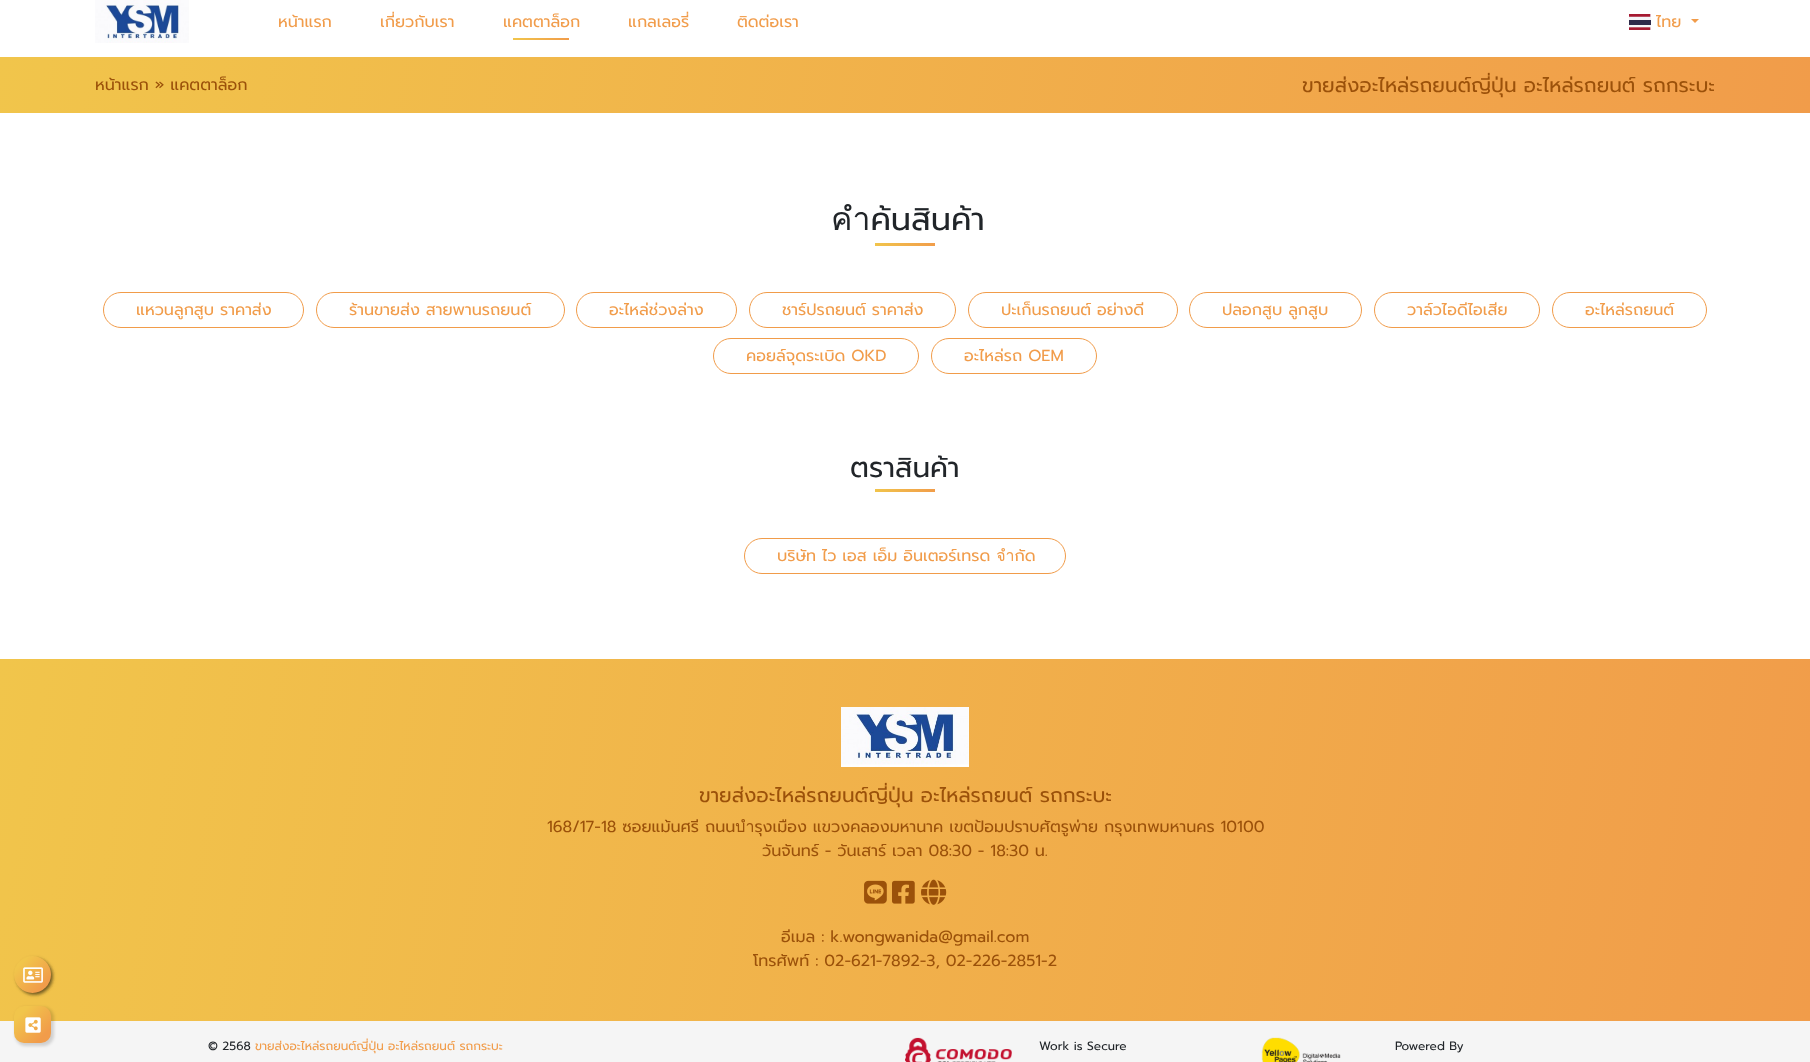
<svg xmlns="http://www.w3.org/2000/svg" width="1810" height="1062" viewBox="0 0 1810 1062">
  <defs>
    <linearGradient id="g1" gradientUnits="userSpaceOnUse" x1="513" y1="39" x2="569" y2="39"><stop offset="0" stop-color="rgb(241,197,75)"/><stop offset="1" stop-color="rgb(241,156,74)"/></linearGradient>
    <linearGradient id="g2" gradientUnits="userSpaceOnUse" x1="1787" y1="241" x2="23" y2="-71"><stop offset="0" stop-color="rgb(241,156,74)"/><stop offset="1" stop-color="rgb(241,197,75)"/></linearGradient>
    <linearGradient id="g3" gradientUnits="userSpaceOnUse" x1="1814" y1="1000" x2="-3.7" y2="680"><stop offset="0" stop-color="rgb(241,156,74)"/><stop offset="1" stop-color="rgb(241,197,75)"/></linearGradient>
    <linearGradient id="g4" gradientUnits="userSpaceOnUse" x1="51" y1="993" x2="14" y2="956"><stop offset="0.2" stop-color="rgb(241,156,74)"/><stop offset="0.8" stop-color="rgb(241,197,75)"/></linearGradient>
    <linearGradient id="g5" gradientUnits="userSpaceOnUse" x1="51" y1="1043" x2="14" y2="1006"><stop offset="0.2" stop-color="rgb(241,156,74)"/><stop offset="0.8" stop-color="rgb(241,197,75)"/></linearGradient>
  </defs>
  <rect width="100%" height="100%" fill="rgb(255,255,255)"/>
  <image x="95" y="0" width="94" height="43" href="pic1.png"/>
  <g font-family="Prompt" font-size="16" fill="rgb(241,156,74)">
    <text x="278" y="27">หน้าแรก</text>
    <text x="380" y="27">เกี่ยวกับเรา</text>
    <text x="503" y="27">แคตตาล็อก</text>
  </g>
  <rect x="513" y="38" width="56" height="2" fill="url(#g1)"/>
  <g font-family="Prompt" font-size="16" fill="rgb(241,156,74)">
    <text x="628" y="27">แกลเลอรี่</text>
    <text x="737" y="27">ติดต่อเรา</text>
  </g>
  <image x="1629" y="14" width="22" height="16" href="pic2.png"/>
  <text x="1656" y="27" font-family="Prompt" font-size="16" fill="rgb(241,156,74)">ไทย</text>
  <path d="M1691 19H1699L1695 23Z" fill="rgb(241,156,74)"/>
  <rect x="0" y="57" width="1810" height="56" fill="url(#g2)"/>
  <text x="95" y="90" font-family="Prompt" font-size="16" fill="rgb(155,81,10)">หน้าแรก » แคตตาล็อก</text>
  <text x="1302" y="92" font-family="Prompt" font-size="20" fill="rgb(155,81,10)">ขายส่งอะไหล่รถยนต์ญี่ปุ่น อะไหล่รถยนต์ รถกระบะ</text>
  <text x="831" y="230" font-family="Prompt" font-size="32" fill="rgb(33,37,41)">คำค้นสินค้า</text>
  <image x="875" y="243" width="60" height="3" href="pic3.png"/>
  <rect x="103.5" y="292.5" width="200" height="35" rx="17.5" fill="none" stroke="rgb(241,156,74)"/>
  <text x="136" y="315" font-family="Prompt" font-size="16" fill="rgb(241,156,74)">แหวนลูกสูบ ราคาส่ง</text>
  <rect x="316.5" y="292.5" width="248" height="35" rx="17.5" fill="none" stroke="rgb(241,156,74)"/>
  <text x="349" y="315" font-family="Prompt" font-size="16" fill="rgb(241,156,74)">ร้านขายส่ง สายพานรถยนต์</text>
  <rect x="576.5" y="292.5" width="160" height="35" rx="17.5" fill="none" stroke="rgb(241,156,74)"/>
  <text x="609" y="315" font-family="Prompt" font-size="16" fill="rgb(241,156,74)">อะไหล่ช่วงล่าง</text>
  <rect x="749.5" y="292.5" width="206" height="35" rx="17.5" fill="none" stroke="rgb(241,156,74)"/>
  <text x="782" y="315" font-family="Prompt" font-size="16" fill="rgb(241,156,74)">ชาร์ปรถยนต์ ราคาส่ง</text>
  <rect x="968.5" y="292.5" width="209" height="35" rx="17.5" fill="none" stroke="rgb(241,156,74)"/>
  <text x="1001" y="315" font-family="Prompt" font-size="16" fill="rgb(241,156,74)">ปะเก็นรถยนต์ อย่างดี</text>
  <rect x="1189.5" y="292.5" width="172" height="35" rx="17.5" fill="none" stroke="rgb(241,156,74)"/>
  <text x="1222" y="315" font-family="Prompt" font-size="16" fill="rgb(241,156,74)">ปลอกสูบ ลูกสูบ</text>
  <rect x="1374.5" y="292.5" width="165" height="35" rx="17.5" fill="none" stroke="rgb(241,156,74)"/>
  <text x="1407" y="315" font-family="Prompt" font-size="16" fill="rgb(241,156,74)">วาล์วไอดีไอเสีย</text>
  <rect x="1552.5" y="292.5" width="154" height="35" rx="17.5" fill="none" stroke="rgb(241,156,74)"/>
  <text x="1585" y="315" font-family="Prompt" font-size="16" fill="rgb(241,156,74)">อะไหล่รถยนต์</text>
  <rect x="713.5" y="338.5" width="205" height="35" rx="17.5" fill="none" stroke="rgb(241,156,74)"/>
  <text x="746" y="361" font-family="Prompt" font-size="16" fill="rgb(241,156,74)">คอยล์จุดระเบิด OKD</text>
  <rect x="931.5" y="338.5" width="165" height="35" rx="17.5" fill="none" stroke="rgb(241,156,74)"/>
  <text x="964" y="361" font-family="Prompt" font-size="16" fill="rgb(241,156,74)">อะไหล่รถ OEM</text>
  <text x="850" y="477" font-family="Prompt" font-size="28" fill="rgb(33,37,41)">ตราสินค้า</text>
  <image x="875" y="489" width="60" height="3" href="pic4.png"/>
  <rect x="744.5" y="538.5" width="321" height="35" rx="17.5" fill="none" stroke="rgb(241,156,74)"/>
  <text x="777" y="561" font-family="Prompt" font-size="16" fill="rgb(241,156,74)">บริษัท ไว เอส เอ็ม อินเตอร์เทรด จำกัด</text>
  <rect x="0" y="659" width="1810" height="362" fill="url(#g3)"/>
  <rect x="15" y="957" width="39" height="39" rx="19.5" fill="rgba(0,0,0,0.15)" filter="blur(1.5px)"/>
  <rect x="17" y="959" width="35" height="35" rx="17.5" fill="rgba(0,0,0,0.15)" filter="blur(1.5px)"/>
  <rect x="17" y="959" width="35" height="35" rx="17.5" fill="rgba(0,0,0,0.15)" filter="blur(1.5px)"/>
  <rect x="17" y="959" width="35" height="35" rx="17.5" fill="rgba(0,0,0,0.15)" filter="blur(1.5px)"/>
  <rect x="17" y="959" width="35" height="35" rx="17.5" fill="rgba(0,0,0,0.15)" filter="blur(1.5px)"/>
  <circle cx="32.5" cy="974.5" r="18.5" fill="url(#g4)"/>
  <image x="23" y="967" width="20" height="16" href="pic5.png"/>
  <image x="841" y="707" width="128" height="60" href="pic6.png"/>
  <text x="699" y="802" font-family="Prompt" font-size="20" fill="rgb(155,81,10)">ขายส่งอะไหล่รถยนต์ญี่ปุ่น อะไหล่รถยนต์ รถกระบะ</text>
  <g font-family="Prompt" font-size="16" fill="rgb(155,81,10)">
    <text x="547" y="832">168/17-18 ซอยแม้นศรี ถนนบำรุงเมือง แขวงคลองมหานาค เขตป้อมปราบศัตรูพ่าย กรุงเทพมหานคร 10100</text>
    <text x="762" y="856">วันจันทร์ - วันเสาร์ เวลา 08:30 - 18:30 น.</text>
  </g>
  <image x="864" y="880" width="23" height="24" href="pic7.png"/>
  <image x="892" y="880" width="23" height="24" href="pic8.png"/>
  <image x="921" y="879" width="26" height="26" href="pic9.png"/>
  <g font-family="Prompt" font-size="16" fill="rgb(155,81,10)">
    <text x="781" y="942">อีเมล : k.wongwanida@gmail.com</text>
    <text x="753" y="966">โทรศัพท์ : 02-621-7892-3, 02-226-2851-2</text>
  </g>
  <rect x="0" y="1021" width="1810" height="41" fill="rgb(245,245,245)"/>
  <text x="208" y="1050" font-family="Prompt" font-size="12" fill="rgb(33,37,41)">© 2568</text>
  <text x="255" y="1050" font-family="Prompt" font-size="12" fill="rgb(241,156,74)">ขายส่งอะไหล่รถยนต์ญี่ปุ่น อะไหล่รถยนต์ รถกระบะ</text>
  <image x="905" y="1037" width="107" height="25" href="pic10.png"/>
  <text x="1039" y="1050" font-family="Prompt" font-size="12" fill="rgb(33,37,41)">Work is Secure</text>
  <image x="1261" y="1037" width="80" height="25" href="pic11.png"/>
  <text x="1395" y="1050" font-family="Prompt" font-size="12" fill="rgb(33,37,41)">Powered By</text>
  <rect x="15" y="1007" width="39" height="39" rx="11" fill="rgba(0,0,0,0.15)" filter="blur(1.5px)"/>
  <rect x="14" y="1006" width="37" height="37" rx="10" fill="url(#g5)"/>
  <image x="25" y="1017" width="16" height="16" href="pic12.png"/>
</svg>
